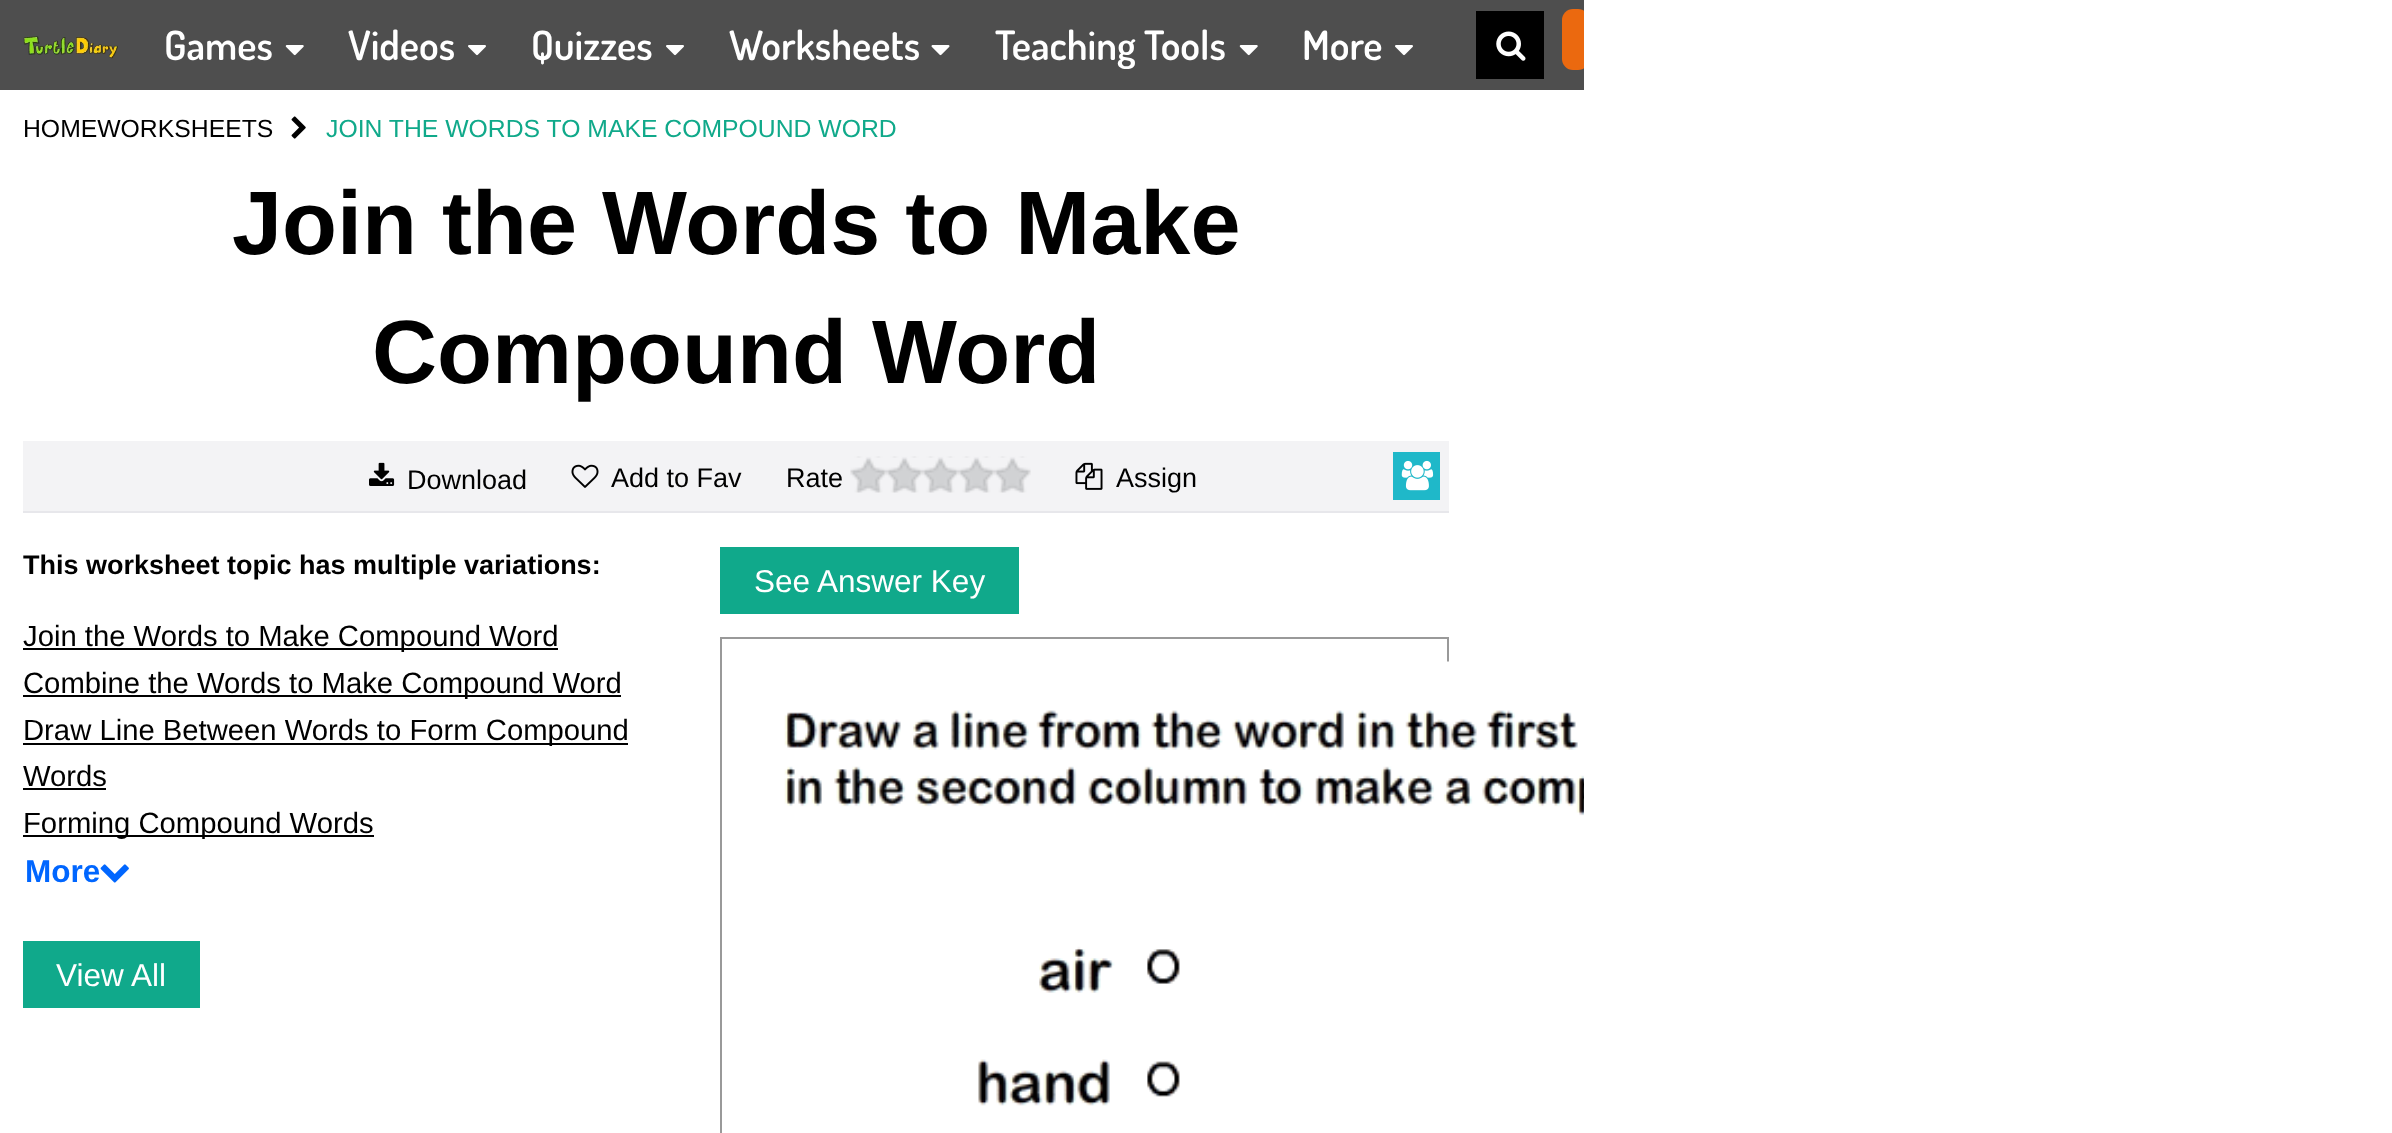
<svg xmlns="http://www.w3.org/2000/svg" width="2392" height="1133" viewBox="0 0 2392 1133">
  <rect width="100%" height="100%" fill="rgb(255,255,255)"/>
  <rect x="0" y="0" width="1584" height="90" fill="rgb(78,78,78)"/>
  <image x="23" y="36" width="95" height="23" href="pic1.png"/>
  <text x="164" y="60" font-family="Dosis" font-size="40.5" font-weight="600" fill="rgb(255,255,255)">Games</text>
  <image x="285" y="45" width="19" height="11" href="pic2.png"/>
  <text x="348" y="60" font-family="Dosis" font-size="40.5" font-weight="600" fill="rgb(255,255,255)">Videos</text>
  <image x="468" y="45" width="18" height="11" href="pic3.png"/>
  <text x="531" y="60" font-family="Dosis" font-size="40.5" font-weight="600" fill="rgb(255,255,255)">Quizzes</text>
  <image x="666" y="45" width="18" height="11" href="pic3.png"/>
  <text x="729" y="60" font-family="Dosis" font-size="40.5" font-weight="600" fill="rgb(255,255,255)">Worksheets</text>
  <image x="931" y="45" width="19" height="11" href="pic4.png"/>
  <text x="995" y="60" font-family="Dosis" font-size="40.5" font-weight="600" fill="rgb(255,255,255)">Teaching Tools</text>
  <image x="1239" y="45" width="19" height="11" href="pic2.png"/>
  <text x="1302" y="60" font-family="Dosis" font-size="40.5" font-weight="600" fill="rgb(255,255,255)">More</text>
  <image x="1395" y="45" width="18" height="11" href="pic3.png"/>
  <rect x="1476" y="11" width="68" height="68" fill="rgb(0,0,0)"/>
  <image x="1496" y="31" width="30" height="30" href="pic5.png"/>
  <rect x="1562" y="9" width="27" height="61" rx="11" fill="rgb(235,105,15)"/>
  <rect x="1584" y="10" width="5" height="59" fill="rgb(255,255,255)"/>
  <text x="23" y="137" font-family="Liberation Sans" font-size="24.75" fill="rgb(0,0,0)">HOMEWORKSHEETS</text>
  <image x="291" y="116" width="15" height="23" href="pic6.png"/>
  <text x="326" y="137" font-family="Liberation Sans" font-size="24.75" fill="rgb(16,169,138)">JOIN THE WORDS TO MAKE COMPOUND WORD</text>
  <g font-family="Liberation Sans" font-size="90" font-weight="bold" fill="rgb(0,0,0)">
    <text x="232" y="254">Join the Words to Make</text>
    <text x="372" y="383">Compound Word</text>
  </g>
  <rect x="23" y="441" width="1426" height="70" fill="rgb(243,243,245)"/>
  <image x="369" y="462" width="26" height="24" href="pic7.png"/>
  <text x="407" y="489" font-family="Liberation Sans" font-size="27" fill="rgb(0,0,0)">Download</text>
  <image x="571" y="464" width="28" height="24" href="pic8.png"/>
  <g font-family="Liberation Sans" font-size="27" fill="rgb(0,0,0)">
    <text x="611" y="487">Add to Fav</text>
    <text x="786" y="487">Rate</text>
  </g>
  <image x="850" y="456" width="181" height="37" href="pic9.png"/>
  <image x="1075" y="462" width="28" height="28" href="pic10.png"/>
  <text x="1116" y="487" font-family="Liberation Sans" font-size="27" fill="rgb(0,0,0)">Assign</text>
  <rect x="1393" y="452" width="47" height="48" fill="rgb(31,184,201)"/>
  <image x="1401" y="460" width="33" height="31" href="pic11.png"/>
  <rect x="23" y="511" width="1426" height="2" fill="rgb(231,231,235)"/>
  <text x="23" y="574" font-family="Liberation Sans" font-size="27" font-weight="bold" fill="rgb(0,0,0)">This worksheet topic has multiple variations:</text>
  <rect x="23" y="648" width="535" height="2" fill="rgb(0,0,0)"/>
  <text x="23" y="646" font-family="Liberation Sans" font-size="29.25" fill="rgb(0,0,0)">Join the Words to Make Compound Word</text>
  <rect x="23" y="695" width="598" height="2" fill="rgb(0,0,0)"/>
  <text x="23" y="693" font-family="Liberation Sans" font-size="29.25" fill="rgb(0,0,0)">Combine the Words to Make Compound Word</text>
  <rect x="23" y="743" width="605" height="2" fill="rgb(0,0,0)"/>
  <g font-family="Liberation Sans" font-size="29.25" fill="rgb(0,0,0)">
    <text>
      <tspan x="23" y="740">Draw Line Between Words to Form Compound</tspan>
      <tspan x="23" y="786">Words</tspan>
    </text>
  </g>
  <rect x="23" y="788" width="83" height="2" fill="rgb(0,0,0)"/>
  <rect x="23" y="835" width="351" height="2" fill="rgb(0,0,0)"/>
  <text x="23" y="833" font-family="Liberation Sans" font-size="29.25" fill="rgb(0,0,0)">Forming Compound Words</text>
  <text x="25" y="882" font-family="Liberation Sans" font-size="31.5" font-weight="bold" fill="rgb(0,102,255)">More</text>
  <image x="100" y="864" width="29" height="19" href="pic12.png"/>
  <rect x="23" y="941" width="177" height="67" fill="rgb(16,169,139)"/>
  <g font-family="Liberation Sans" font-size="31.5" fill="rgb(255,255,255)">
    <text x="56" y="986">View</text>
    <text x="131" y="986">All</text>
  </g>
  <rect x="720" y="547" width="299" height="67" fill="rgb(16,169,139)"/>
  <text x="754" y="592" font-family="Liberation Sans" font-size="31.5" fill="rgb(255,255,255)">See Answer Key</text>
  <rect x="721" y="638" width="727" height="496" fill="none" stroke="rgb(153,153,153)" stroke-width="2"/>
  <image x="784" y="661" width="800" height="472" href="pic13.png"/>
</svg>
